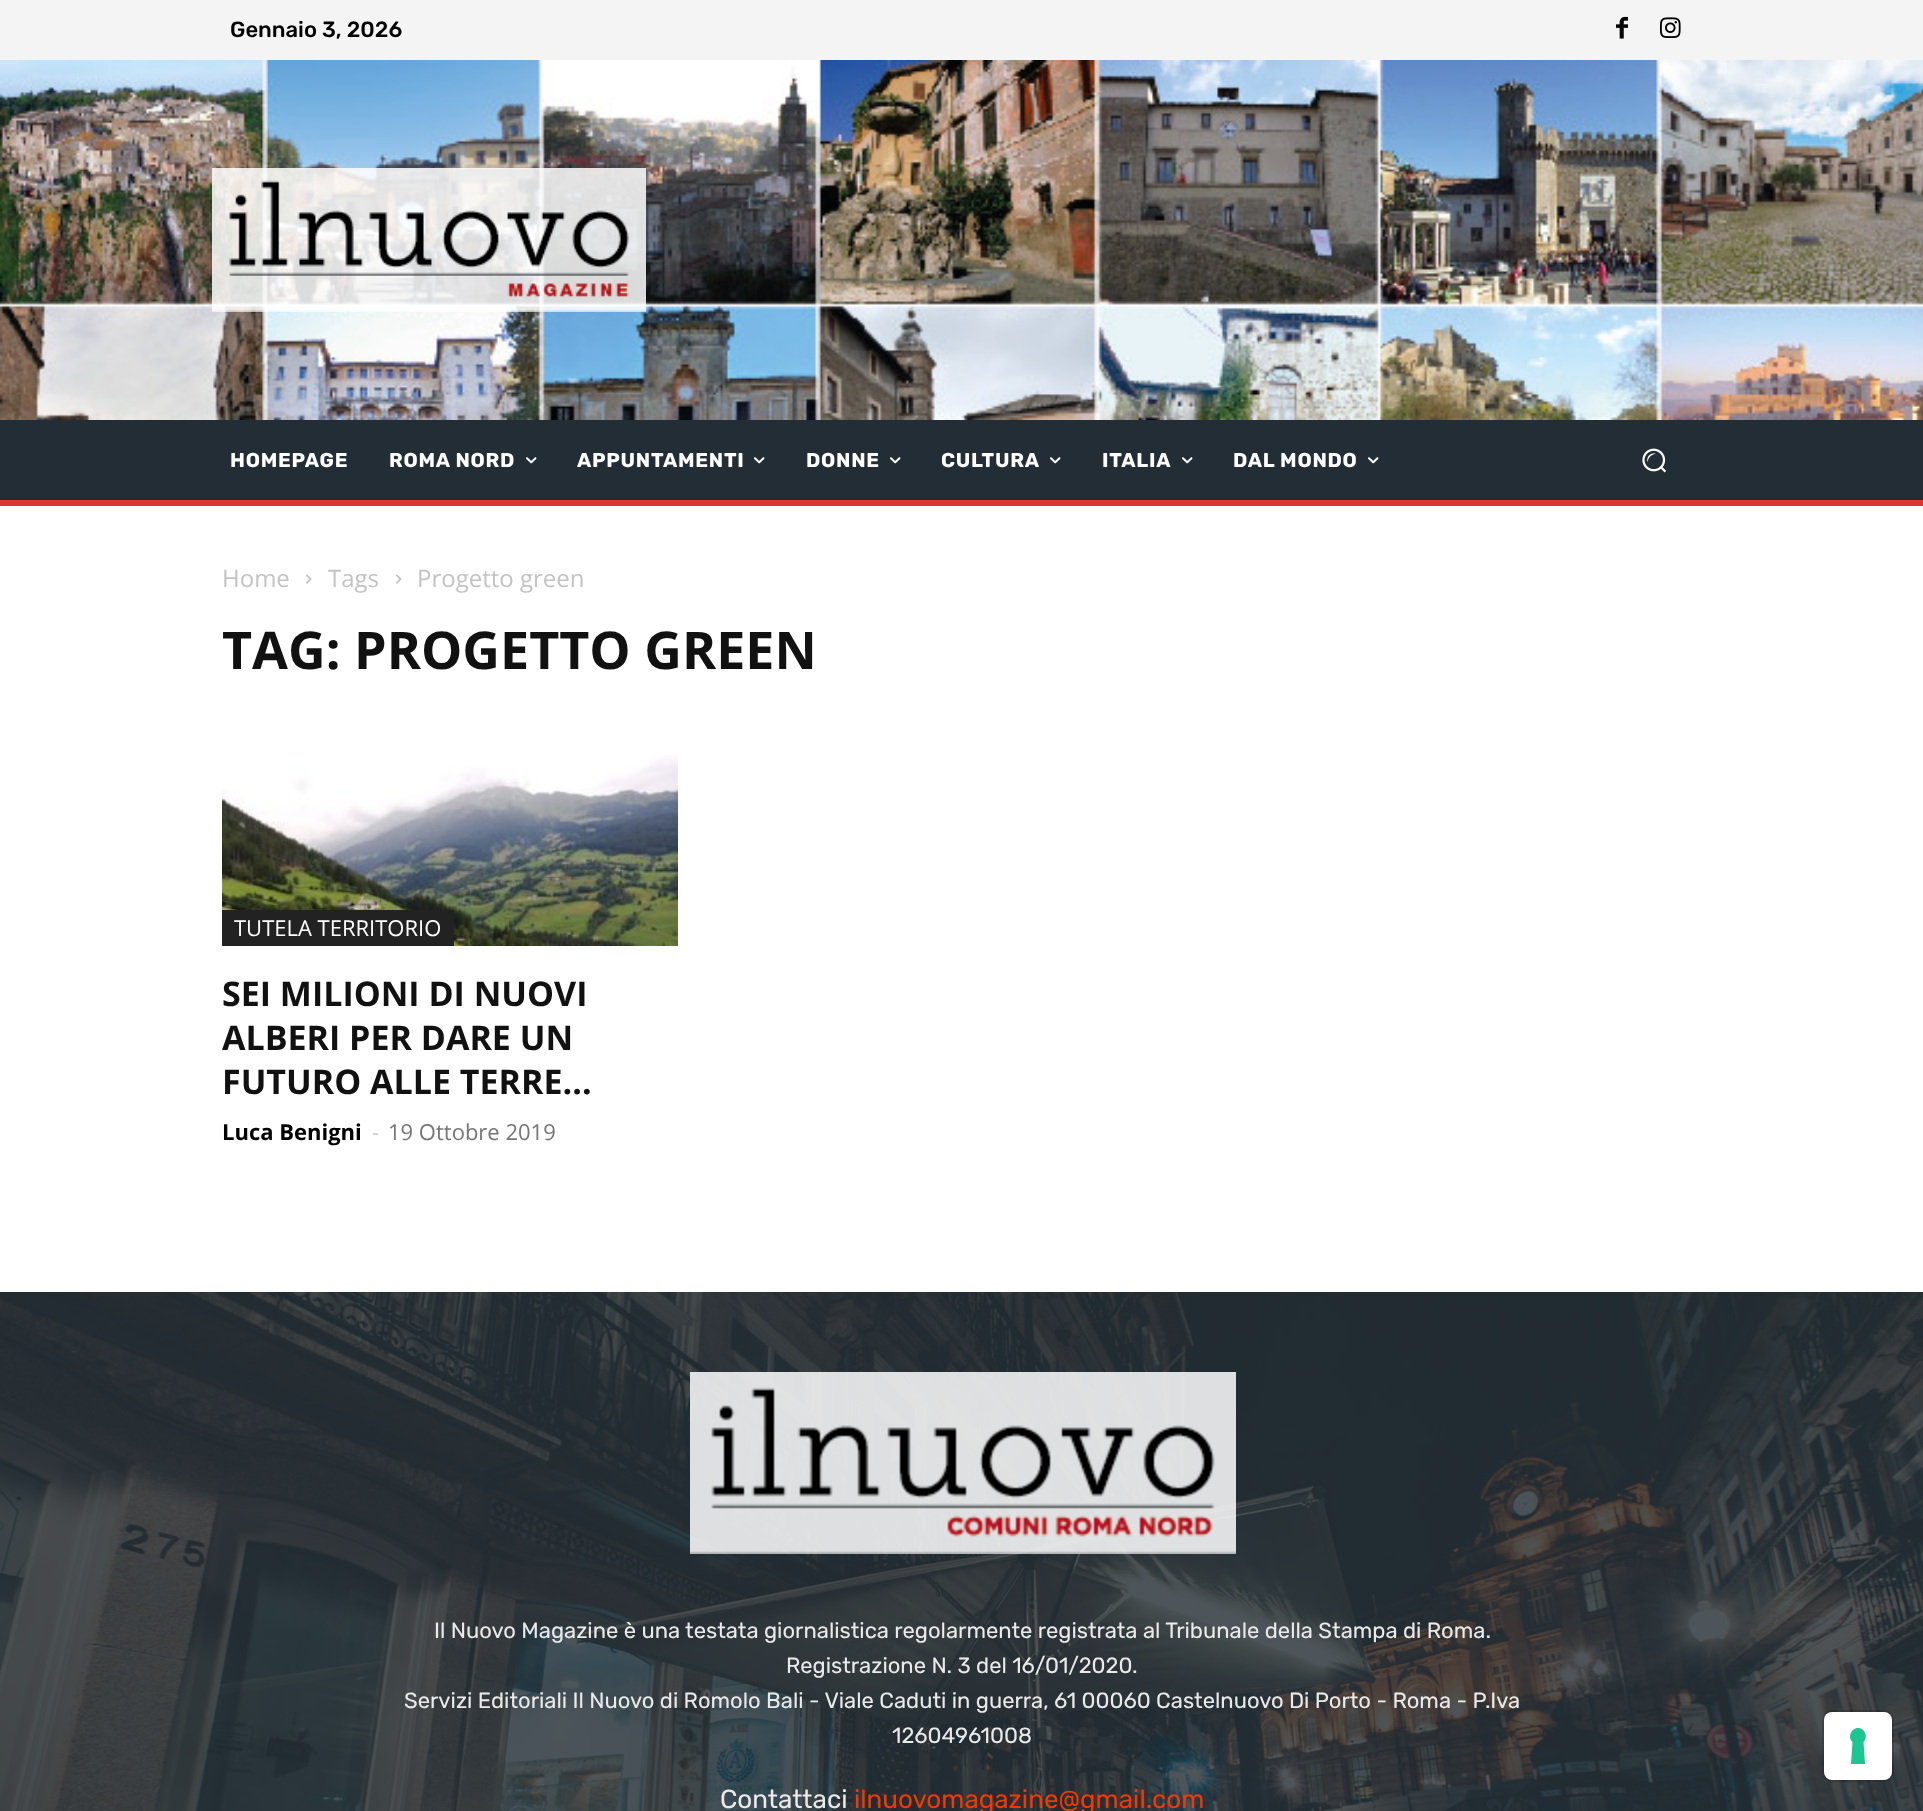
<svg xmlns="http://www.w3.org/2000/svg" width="1923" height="1811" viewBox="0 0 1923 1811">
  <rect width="100%" height="100%" fill="rgb(255,255,255)"/>
  <rect x="0" y="0" width="1923" height="60" fill="rgb(244,244,244)"/>
  <text x="230" y="37" font-family="Rubik" font-size="22" font-weight="500" fill="rgb(0,0,0)">Gennaio 3, 2026</text>
  <image x="1616" y="16" width="12" height="23" href="pic1.png"/>
  <image x="1660" y="17" width="21" height="21" href="pic2.png"/>
  <image x="0" y="60" width="1923" height="360" href="pic3.png"/>
  <image x="212" y="168" width="434" height="144" href="pic4.png"/>
  <rect x="0" y="420" width="1923" height="80" fill="rgb(35,45,53)"/>
  <g font-family="Rubik" font-size="20" font-weight="bold" letter-spacing="0.75" fill="rgb(255,255,255)">
    <text x="230" y="467">HOMEPAGE</text>
    <text x="389" y="467">ROMA NORD</text>
  </g>
  <image x="526" y="457" width="11" height="7" href="pic5.png"/>
  <text x="577" y="467" font-family="Rubik" font-size="20" font-weight="bold" letter-spacing="0.75" fill="rgb(255,255,255)">APPUNTAMENTI</text>
  <image x="754" y="457" width="11" height="7" href="pic5.png"/>
  <text x="806" y="467" font-family="Rubik" font-size="20" font-weight="bold" letter-spacing="0.75" fill="rgb(255,255,255)">DONNE</text>
  <image x="890" y="457" width="11" height="7" href="pic5.png"/>
  <text x="941" y="467" font-family="Rubik" font-size="20" font-weight="bold" letter-spacing="0.75" fill="rgb(255,255,255)">CULTURA</text>
  <image x="1050" y="457" width="11" height="7" href="pic5.png"/>
  <text x="1102" y="467" font-family="Rubik" font-size="20" font-weight="bold" letter-spacing="0.75" fill="rgb(255,255,255)">ITALIA</text>
  <image x="1182" y="457" width="11" height="7" href="pic5.png"/>
  <text x="1233" y="467" font-family="Rubik" font-size="20" font-weight="bold" letter-spacing="0.75" fill="rgb(255,255,255)">DAL MONDO</text>
  <image x="1368" y="457" width="11" height="7" href="pic5.png"/>
  <image x="1642" y="448" width="25" height="25" href="pic6.png"/>
  <rect x="0" y="500" width="1923" height="6" fill="rgb(221,51,51)"/>
  <text x="222" y="587" font-family="Open Sans" font-size="24" fill="rgb(195,195,195)">Home</text>
  <image x="306" y="574" width="6" height="10" href="pic7.png"/>
  <text x="328" y="587" font-family="Open Sans" font-size="24" fill="rgb(195,195,195)">Tags</text>
  <image x="396" y="574" width="6" height="10" href="pic7.png"/>
  <text x="417" y="587" font-family="Open Sans" font-size="24" fill="rgb(195,195,195)">Progetto green</text>
  <text x="222" y="669" font-family="Open Sans" font-size="52" font-weight="bold" fill="rgb(17,17,17)">TAG: PROGETTO GREEN</text>
  <image x="222" y="755" width="456" height="191" href="pic8.png"/>
  <rect x="222" y="910" width="232" height="36" fill="rgb(34,34,34)"/>
  <text x="234" y="936" font-family="Open Sans" font-size="22" fill="rgb(255,255,255)">TUTELA TERRITORIO</text>
  <g font-family="Open Sans" font-size="34" font-weight="bold" fill="rgb(17,17,17)">
    <text>
      <tspan x="222" y="1006">SEI MILIONI DI NUOVI</tspan>
      <tspan x="222" y="1050">ALBERI PER DARE UN</tspan>
      <tspan x="222" y="1094">FUTURO ALLE TERRE...</tspan>
    </text>
  </g>
  <text x="222" y="1140" font-family="Open Sans" font-size="22" font-weight="bold" fill="rgb(0,0,0)">Luca Benigni</text>
  <text x="372" y="1140" font-family="Open Sans" font-size="22" fill="rgb(204,204,204)">-</text>
  <text x="388" y="1140" font-family="Open Sans" font-size="22" fill="rgb(118,118,118)">19 Ottobre 2019</text>
  <rect x="0" y="1292" width="1923" height="519" fill="rgb(35,45,53)"/>
  <image x="0" y="1292" width="1923" height="519" href="pic9.png"/>
  <image x="690" y="1372" width="546" height="182" href="pic10.png"/>
  <g font-family="Rubik" font-size="22" fill="rgb(234,234,234)">
    <text x="434" y="1638">Il Nuovo Magazine è una testata giornalistica regolarmente registrata al Tribunale della Stampa di Roma.</text>
    <text x="786" y="1673">Registrazione N. 3 del 16/01/2020.</text>
    <text x="404" y="1708">Servizi Editoriali Il Nuovo di Romolo Bali - Viale Caduti in guerra, 61 00060 Castelnuovo Di Porto - Roma - P.Iva</text>
    <text x="892" y="1743">12604961008</text>
  </g>
  <text x="720" y="1808" font-family="Rubik" font-size="26" fill="rgb(234,234,234)">Contattaci</text>
  <text x="854" y="1808" font-family="Rubik" font-size="26" fill="rgb(244,57,0)">ilnuovomagazine@gmail.com</text>
  <rect x="1823" y="1711" width="70" height="70" rx="9" fill="none" stroke="rgba(0,0,0,0.15)" stroke-width="2"/>
  <rect x="1824" y="1712" width="68" height="68" rx="8" fill="rgb(255,255,255)"/>
  <path d="M1858 1728C1865 1728 1868.5 1737.5 1863.5 1742L1865 1764H1851L1852.5 1742C1847.5 1737.5 1851 1728 1858 1728Z" fill="rgb(28,198,145)" fill-rule="evenodd"/>
</svg>
